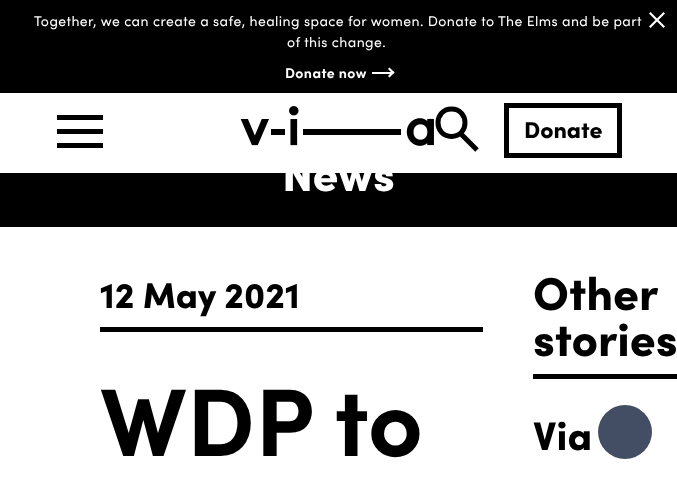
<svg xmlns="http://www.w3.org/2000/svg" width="677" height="481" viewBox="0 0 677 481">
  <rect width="100%" height="100%" fill="rgb(255,255,255)"/>
  <rect x="0" y="0" width="677" height="93" fill="rgb(0,0,0)"/>
  <g font-family="Sofia" font-size="14" letter-spacing="0.42" fill="rgb(255,255,255)">
    <text x="34" y="26">Together, we can create a safe, healing space for women. Donate to The Elms and be part</text>
    <text x="287" y="47">of this change.</text>
  </g>
  <text x="285" y="78" font-family="Sofia" font-size="14" font-weight="bold" letter-spacing="0.42" fill="rgb(255,255,255)">Donate now</text>
  <rect x="372" y="72" width="20" height="2" fill="rgb(255,255,255)"/>
  <path d="M388 69L389.5 67.5L394.5 72.5L393 74Z" fill="rgb(255,255,255)"/>
  <path d="M388 76L393 71L394.5 72.5L389.5 77.5Z" fill="rgb(255,255,255)"/>
  <path d="M650.5 12L665 26.5L663.5 28L649 13.5Z" fill="rgb(255,255,255)"/>
  <path d="M649 26.5L663.5 12L665 13.5L650.5 28Z" fill="rgb(255,255,255)"/>
  <rect x="57" y="129" width="46" height="5" fill="rgb(0,0,0)"/>
  <rect x="57" y="115" width="46" height="5" fill="rgb(0,0,0)"/>
  <rect x="57" y="143" width="46" height="5" fill="rgb(0,0,0)"/>
  <image x="240" y="106" width="194" height="40" href="pic1.png"/>
  <path d="M451.5 136.5C469.5 136.5 469.5 109 451.5 109C433.5 109 433.5 136.5 451.5 136.5ZM461 134L477 150" fill="none" stroke="rgb(0,0,0)" stroke-width="5" stroke-linejoin="round"/>
  <rect x="506.5" y="105.5" width="113" height="50" fill="none" stroke="rgb(0,0,0)" stroke-width="5"/>
  <text x="524" y="138" font-family="Sofia" font-size="23" font-weight="900" fill="rgb(0,0,0)">Donate</text>
  <rect x="0" y="173" width="677" height="54" fill="rgb(0,0,0)"/>
  <text x="282" y="191" font-family="Sofia" font-size="46" font-weight="900" fill="rgb(255,255,255)">News</text>
  <rect x="100" y="327" width="383" height="5" fill="rgb(0,0,0)"/>
  <text x="100" y="308" font-family="Sofia" font-size="36" font-weight="900" fill="rgb(0,0,0)">12 May 2021</text>
  <text x="100" y="456" font-family="Sofia" font-size="96" font-weight="bold" fill="rgb(0,0,0)">WDP to</text>
  <rect x="533" y="374" width="144" height="5" fill="rgb(0,0,0)"/>
  <g font-family="Sofia" font-size="46" font-weight="900" fill="rgb(0,0,0)">
    <text>
      <tspan x="533" y="310">Other</tspan>
      <tspan x="533" y="356">stories</tspan>
    </text>
  </g>
  <text x="533" y="450" font-family="Sofia" font-size="40" font-weight="900" fill="rgb(0,0,0)">Via</text>
  <circle cx="625" cy="432" r="27" fill="rgb(67,78,101)"/>
</svg>
